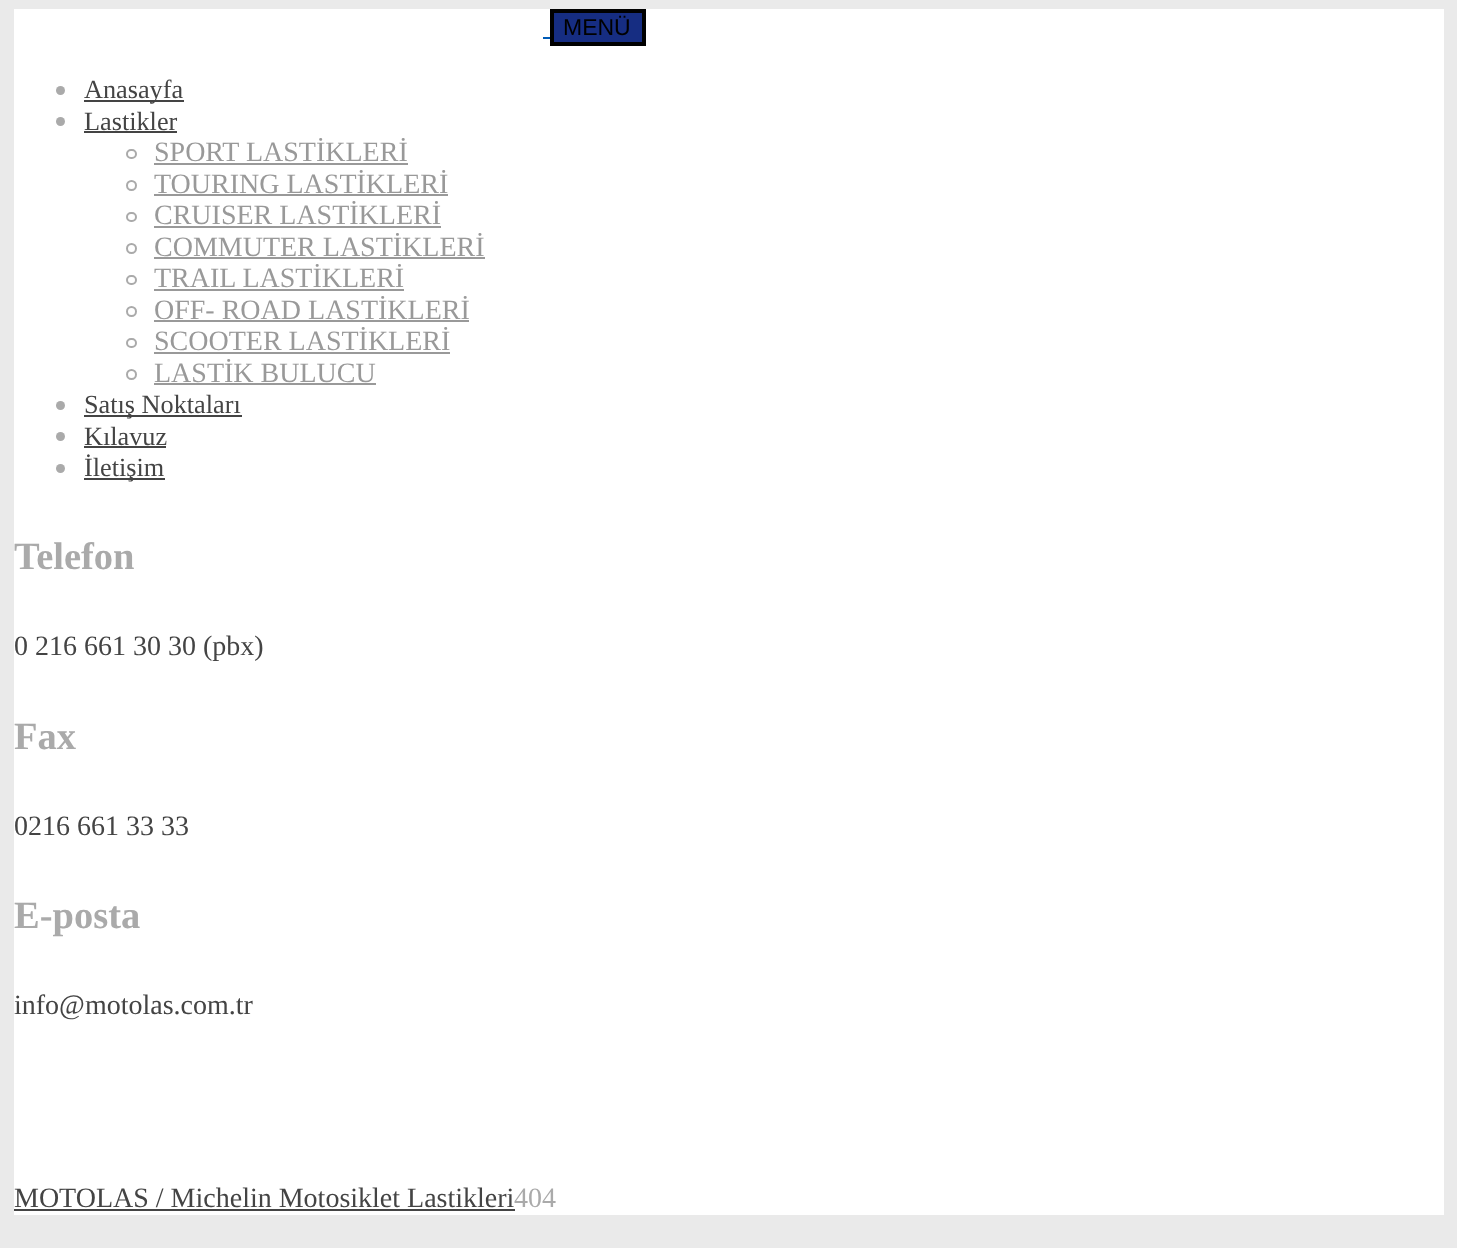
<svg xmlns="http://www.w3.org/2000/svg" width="1457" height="1248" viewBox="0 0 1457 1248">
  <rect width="100%" height="100%" fill="rgb(234,234,234)"/>
  <rect x="14" y="9" width="1430" height="1206" fill="rgb(255,255,255)"/>
  <rect x="552" y="11" width="92" height="33" fill="rgb(22,45,130)" stroke="rgb(0,0,0)" stroke-width="4"/>
  <text x="563" y="35" font-family="Liberation Sans" font-size="23" fill="rgb(0,0,0)">MENÜ</text>
  <rect x="543" y="37" width="7" height="2" fill="rgb(0,91,183)"/>
  <circle cx="60.5" cy="90.5" r="4.5" fill="rgb(170,170,170)"/>
  <rect x="84" y="100" width="100" height="2" fill="rgb(68,68,68)"/>
  <text x="84" y="98" font-family="Liberation Serif" font-size="26.25" fill="rgb(68,68,68)">Anasayfa</text>
  <circle cx="60.5" cy="121.5" r="4.5" fill="rgb(170,170,170)"/>
  <text x="84" y="130" font-family="Liberation Serif" font-size="26.25" fill="rgb(68,68,68)">Lastikler</text>
  <rect x="84" y="131" width="93" height="2" fill="rgb(68,68,68)"/>
  <rect x="127" y="150" width="9" height="8" rx="4" fill="none" stroke="rgb(170,170,170)" stroke-width="2"/>
  <text x="154" y="161" font-family="Liberation Serif" font-size="28" fill="rgb(153,153,153)">SPORT LASTİKLERİ</text>
  <rect x="154" y="163" width="254" height="2" fill="rgb(153,153,153)"/>
  <circle cx="131.5" cy="185.5" r="4.5" fill="none" stroke="rgb(170,170,170)" stroke-width="2"/>
  <text x="154" y="193" font-family="Liberation Serif" font-size="28" fill="rgb(153,153,153)">TOURING LASTİKLERİ</text>
  <rect x="154" y="194" width="294" height="2" fill="rgb(153,153,153)"/>
  <rect x="127" y="213" width="9" height="8" rx="4" fill="none" stroke="rgb(170,170,170)" stroke-width="2"/>
  <text x="154" y="224" font-family="Liberation Serif" font-size="28" fill="rgb(153,153,153)">CRUISER LASTİKLERİ</text>
  <rect x="154" y="226" width="287" height="2" fill="rgb(153,153,153)"/>
  <circle cx="131.5" cy="248.5" r="4.5" fill="none" stroke="rgb(170,170,170)" stroke-width="2"/>
  <text x="154" y="256" font-family="Liberation Serif" font-size="28" fill="rgb(153,153,153)">COMMUTER LASTİKLERİ</text>
  <rect x="154" y="257" width="331" height="2" fill="rgb(153,153,153)"/>
  <rect x="127" y="276" width="9" height="8" rx="4" fill="none" stroke="rgb(170,170,170)" stroke-width="2"/>
  <text x="154" y="287" font-family="Liberation Serif" font-size="28" fill="rgb(153,153,153)">TRAIL LASTİKLERİ</text>
  <rect x="154" y="289" width="250" height="2" fill="rgb(153,153,153)"/>
  <circle cx="131.5" cy="311.5" r="4.5" fill="none" stroke="rgb(170,170,170)" stroke-width="2"/>
  <text x="154" y="319" font-family="Liberation Serif" font-size="28" fill="rgb(153,153,153)">OFF- ROAD LASTİKLERİ</text>
  <rect x="154" y="320" width="315" height="2" fill="rgb(153,153,153)"/>
  <rect x="127" y="339" width="9" height="8" rx="4" fill="none" stroke="rgb(170,170,170)" stroke-width="2"/>
  <text x="154" y="350" font-family="Liberation Serif" font-size="28" fill="rgb(153,153,153)">SCOOTER LASTİKLERİ</text>
  <rect x="154" y="352" width="296" height="2" fill="rgb(153,153,153)"/>
  <circle cx="131.5" cy="374.5" r="4.5" fill="none" stroke="rgb(170,170,170)" stroke-width="2"/>
  <text x="154" y="382" font-family="Liberation Serif" font-size="28" fill="rgb(153,153,153)">LASTİK BULUCU</text>
  <rect x="154" y="383" width="222" height="2" fill="rgb(153,153,153)"/>
  <circle cx="60.5" cy="405.5" r="4.5" fill="rgb(170,170,170)"/>
  <rect x="84" y="415" width="158" height="2" fill="rgb(68,68,68)"/>
  <text x="84" y="413" font-family="Liberation Serif" font-size="26.25" fill="rgb(68,68,68)">Satış Noktaları</text>
  <circle cx="60.5" cy="436.5" r="4.5" fill="rgb(170,170,170)"/>
  <text x="84" y="445" font-family="Liberation Serif" font-size="26.25" fill="rgb(68,68,68)">Kılavuz</text>
  <rect x="84" y="446" width="82" height="2" fill="rgb(68,68,68)"/>
  <circle cx="60.5" cy="468.5" r="4.5" fill="rgb(170,170,170)"/>
  <rect x="84" y="478" width="81" height="2" fill="rgb(68,68,68)"/>
  <text x="84" y="476" font-family="Liberation Serif" font-size="26.25" fill="rgb(68,68,68)">İletişim</text>
  <text x="14" y="569" font-family="Liberation Serif" font-size="38.5" font-weight="bold" fill="rgb(170,170,170)">Telefon</text>
  <text x="14" y="655" font-family="Liberation Serif" font-size="28" fill="rgb(68,68,68)">0 216 661 30 30 (pbx)</text>
  <text x="14" y="749" font-family="Liberation Serif" font-size="38.5" font-weight="bold" fill="rgb(170,170,170)">Fax</text>
  <text x="14" y="835" font-family="Liberation Serif" font-size="28" fill="rgb(68,68,68)">0216 661 33 33</text>
  <text x="14" y="928" font-family="Liberation Serif" font-size="38.5" font-weight="bold" fill="rgb(170,170,170)">E-posta</text>
  <g font-family="Liberation Serif" font-size="28" fill="rgb(68,68,68)">
    <text x="14" y="1014">info@motolas.com.tr</text>
    <text x="14" y="1207">MOTOLAS / Michelin Motosiklet Lastikleri</text>
  </g>
  <rect x="14" y="1209" width="501" height="2" fill="rgb(68,68,68)"/>
  <text x="514" y="1207" font-family="Liberation Serif" font-size="28" fill="rgb(170,170,170)">404</text>
</svg>
